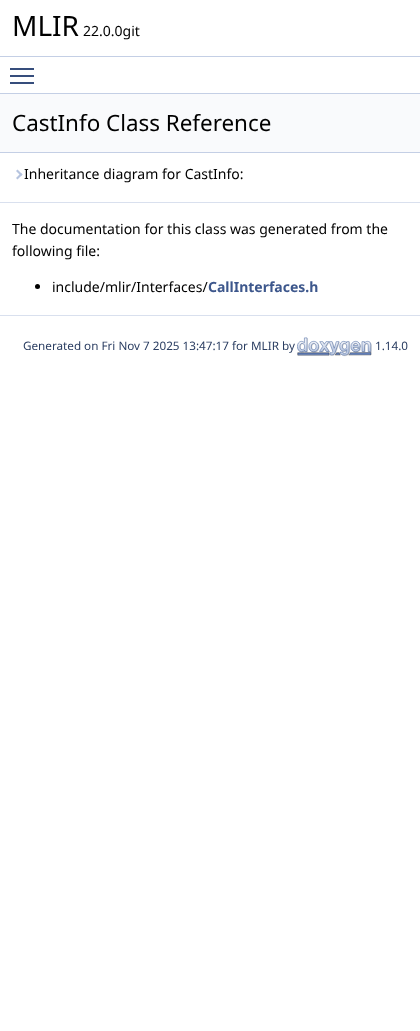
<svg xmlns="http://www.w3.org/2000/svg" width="420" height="1031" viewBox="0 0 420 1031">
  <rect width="100%" height="100%" fill="rgb(255,255,255)"/>
  <rect x="0" y="56" width="420" height="1" fill="rgb(196,207,229)"/>
  <text x="12" y="36" font-family="Noto Sans" font-size="28" fill="rgb(0,0,0)">MLIR</text>
  <text x="83" y="36" font-family="Noto Sans" font-size="14" fill="rgb(0,0,0)">22.0.0git</text>
  <rect x="10" y="75" width="24" height="2" fill="rgb(54,77,124)"/>
  <rect x="10" y="68" width="24" height="2" fill="rgb(54,77,124)"/>
  <rect x="10" y="82" width="24" height="2" fill="rgb(54,77,124)"/>
  <rect x="0" y="93" width="420" height="1" fill="rgb(196,207,229)"/>
  <rect x="0" y="94" width="420" height="58" fill="rgb(249,250,252)"/>
  <rect x="0" y="152" width="420" height="1" fill="rgb(196,207,229)"/>
  <text x="12" y="131" font-family="Noto Sans" font-size="22.4" fill="rgb(0,0,0)">CastInfo Class Reference</text>
  <path d="M16 171L17.5 169.5L22.5 174.5L21 176Z" fill="rgb(182,196,223)"/>
  <path d="M16 178L21 173L22.5 174.5L17.5 179.5Z" fill="rgb(182,196,223)"/>
  <text x="24" y="179" font-family="Noto Sans" font-size="14" fill="rgb(0,0,0)">Inheritance diagram for CastInfo:</text>
  <rect x="0" y="202" width="420" height="1" fill="rgb(217,224,238)"/>
  <g font-family="Noto Sans" font-size="14" fill="rgb(0,0,0)">
    <text>
      <tspan x="12" y="234">The documentation for this class was generated from the</tspan>
      <tspan x="12" y="256">following file:</tspan>
    </text>
  </g>
  <circle cx="37.5" cy="286.5" r="2.5" fill="rgb(0,0,0)"/>
  <text x="52" y="292" font-family="Noto Sans" font-size="14" fill="rgb(0,0,0)">include/mlir/Interfaces/</text>
  <text x="208" y="292" font-family="Noto Sans" font-size="14" font-weight="bold" fill="rgb(61,87,140)">CallInterfaces.h</text>
  <rect x="0" y="315" width="420" height="1" fill="rgb(217,224,238)"/>
  <text x="23" y="350" font-family="Noto Sans" font-size="11.7" fill="rgb(42,61,97)">Generated on Fri Nov 7 2025 13:47:17 for MLIR by</text>
  <image x="297" y="337" width="75" height="20" href="pic1.png"/>
  <text x="375" y="350" font-family="Noto Sans" font-size="11.7" fill="rgb(42,61,97)">1.14.0</text>
</svg>
